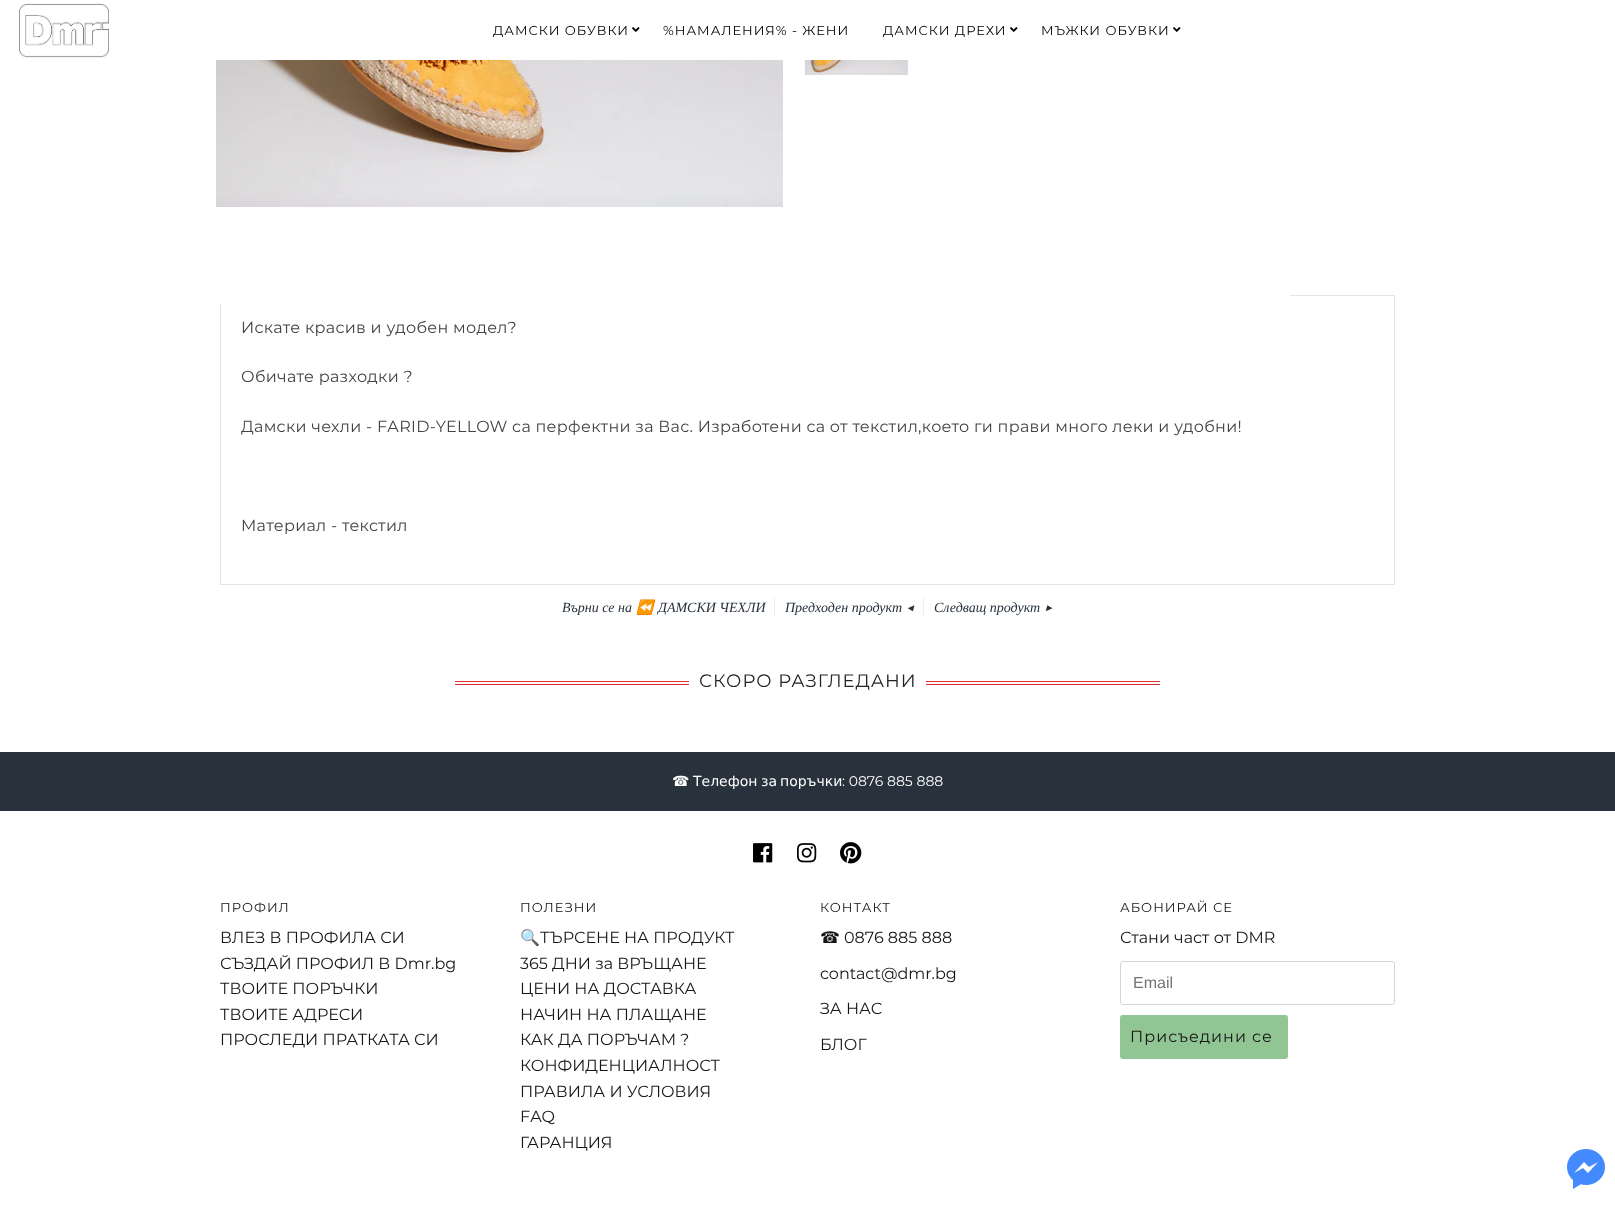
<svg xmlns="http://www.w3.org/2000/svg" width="1615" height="1206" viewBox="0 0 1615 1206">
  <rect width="100%" height="100%" fill="rgb(255,255,255)"/>
  <image x="19" y="3" width="90" height="55" href="pic1.png"/>
  <text x="493" y="35" font-family="Montserrat" font-size="13" font-weight="100" letter-spacing="1" fill="rgb(0,0,0)">ДАМСКИ ОБУВКИ</text>
  <image x="632" y="27" width="8" height="5" href="pic2.png"/>
  <g font-family="Montserrat" font-size="13" font-weight="100" letter-spacing="1" fill="rgb(0,0,0)">
    <text x="663" y="35">%НАМАЛЕНИЯ% - ЖЕНИ</text>
    <text x="883" y="35">ДАМСКИ ДРЕХИ</text>
  </g>
  <image x="1010" y="27" width="8" height="5" href="pic2.png"/>
  <text x="1041" y="35" font-family="Montserrat" font-size="13" font-weight="100" letter-spacing="1" fill="rgb(0,0,0)">МЪЖКИ ОБУВКИ</text>
  <image x="1173" y="27" width="8" height="5" href="pic2.png"/>
  <image x="216" y="60" width="567" height="147" href="pic3.png"/>
  <image x="804" y="60" width="104" height="15" href="pic4.png"/>
  <rect x="220.5" y="295.5" width="1174" height="289" fill="none" stroke="rgb(228,228,228)"/>
  <rect x="220" y="295" width="1070" height="9" fill="rgb(255,255,255)"/>
  <g font-family="Montserrat" font-size="16" font-weight="100" letter-spacing="0.3" fill="rgb(68,68,68)">
    <text x="241" y="333">Искате красив и удобен модел?</text>
    <text x="241" y="382">Обичате разходки ?</text>
    <text x="241" y="432">Дамски чехли - FARID-YELLOW са перфектни за Вас. Изработени са от текстил,което ги прави много леки и удобни!</text>
    <text x="241" y="531">Mатериал - текстил</text>
  </g>
  <text x="562" y="612" font-family="Liberation Serif" font-size="14" font-style="italic" fill="rgb(40,50,60)">Върни се на</text>
  <text x="636" y="612" font-family="Noto Color Emoji" font-size="14" font-style="italic" fill="rgb(40,50,60)">⏪</text>
  <text x="658" y="612" font-family="Liberation Serif" font-size="14" font-style="italic" fill="rgb(40,50,60)">ДАМСКИ ЧЕХЛИ</text>
  <rect x="774" y="598" width="1" height="18" fill="rgb(238,238,238)"/>
  <text x="785" y="612" font-family="Liberation Serif" font-size="14" font-style="italic" fill="rgb(40,50,60)">Предходен продукт</text>
  <text x="906" y="612" font-family="Montserrat" font-size="14" font-style="italic" fill="rgb(40,50,60)">◀</text>
  <rect x="923" y="598" width="1" height="18" fill="rgb(238,238,238)"/>
  <text x="934" y="612" font-family="Liberation Serif" font-size="14" font-style="italic" fill="rgb(40,50,60)">Следващ продукт</text>
  <text x="1044" y="612" font-family="Montserrat" font-size="14" font-style="italic" fill="rgb(40,50,60)">▶</text>
  <rect x="455" y="681" width="705" height="1" fill="rgb(225,43,51)"/>
  <rect x="455" y="684" width="705" height="1" fill="rgb(225,43,51)"/>
  <rect x="689" y="681" width="237" height="4" fill="rgb(255,255,255)"/>
  <text x="699" y="687" font-family="Montserrat" font-size="18" font-weight="100" letter-spacing="1" fill="rgb(36,36,36)">СКОРО РАЗГЛЕДАНИ</text>
  <rect x="0" y="752" width="1615" height="59" fill="rgb(40,50,60)"/>
  <g font-family="DejaVu Sans" font-size="14" fill="rgb(255,255,255)">
    <text x="672" y="786">☎</text>
    <text x="693" y="786">Телефон</text>
    <text x="761" y="786">за</text>
    <text x="780" y="786">поръчки</text>
  </g>
  <text x="842" y="786" font-family="Montserrat" font-size="14" font-weight="100" fill="rgb(255,255,255)">: 0876 885 888</text>
  <image x="753" y="843" width="20" height="20" href="pic5.png"/>
  <image x="797" y="843" width="20" height="20" href="pic6.png"/>
  <image x="840" y="842" width="22" height="22" href="pic7.png"/>
  <text x="220" y="912" font-family="Montserrat" font-size="13" font-weight="100" letter-spacing="1" fill="rgb(22,22,22)">ПРОФИЛ</text>
  <g font-family="Montserrat" font-size="16" font-weight="100" fill="rgb(22,22,22)">
    <text>
      <tspan x="220" y="943">ВЛЕЗ В ПРОФИЛА СИ</tspan>
      <tspan x="220" y="969">СЪЗДАЙ ПРОФИЛ В Dmr.bg</tspan>
      <tspan x="220" y="994">ТВОИТЕ ПОРЪЧКИ</tspan>
      <tspan x="220" y="1020">ТВОИТЕ АДРЕСИ</tspan>
      <tspan x="220" y="1045">ПРОСЛЕДИ ПРАТКАТА СИ</tspan>
    </text>
  </g>
  <text x="520" y="912" font-family="Montserrat" font-size="13" font-weight="100" letter-spacing="1" fill="rgb(22,22,22)">ПОЛЕЗНИ</text>
  <text x="520" y="943" font-family="Noto Color Emoji" font-size="16" fill="rgb(22,22,22)">🔍</text>
  <g font-family="Montserrat" font-size="16" font-weight="100" fill="rgb(22,22,22)">
    <text x="540" y="943">ТЪРСЕНЕ НА ПРОДУКТ</text>
    <text>
      <tspan x="520" y="969">365 ДНИ за ВРЪЩАНЕ</tspan>
      <tspan x="520" y="994">ЦЕНИ НА ДОСТАВКА</tspan>
      <tspan x="520" y="1020">НАЧИН НА ПЛАЩАНЕ</tspan>
      <tspan x="520" y="1045">КАК ДА ПОРЪЧАМ ?</tspan>
      <tspan x="520" y="1071">КОНФИДЕНЦИАЛНОСТ</tspan>
      <tspan x="520" y="1097">ПРАВИЛА И УСЛОВИЯ</tspan>
      <tspan x="520" y="1122">FAQ</tspan>
      <tspan x="520" y="1148">ГАРАНЦИЯ</tspan>
    </text>
  </g>
  <text x="820" y="912" font-family="Montserrat" font-size="13" font-weight="100" letter-spacing="1" fill="rgb(22,22,22)">КОНТАКТ</text>
  <text x="820" y="943" font-family="DejaVu Sans" font-size="16" fill="rgb(22,22,22)">☎</text>
  <g font-family="Montserrat" font-size="16" font-weight="100" fill="rgb(22,22,22)">
    <text x="844" y="943">0876 885 888</text>
    <text x="820" y="979">contact@dmr.bg</text>
    <text x="820" y="1014">ЗА НАС</text>
    <text x="820" y="1050">БЛОГ</text>
  </g>
  <text x="1120" y="912" font-family="Montserrat" font-size="13" font-weight="100" letter-spacing="1" fill="rgb(22,22,22)">АБОНИРАЙ СЕ</text>
  <text x="1120" y="943" font-family="Montserrat" font-size="16" font-weight="100" fill="rgb(22,22,22)">Стани част от DMR</text>
  <rect x="1120.5" y="961.5" width="274" height="43" rx="2.5" fill="none" stroke="rgb(213,213,213)"/>
  <text x="1133" y="988" font-family="Liberation Sans" font-size="16" fill="rgb(117,117,117)">Email</text>
  <rect x="1120" y="1015" width="168" height="44" rx="3" fill="rgb(145,198,148)"/>
  <text x="1130" y="1042" font-family="Montserrat" font-size="16" font-weight="100" letter-spacing="1" fill="rgb(22,22,22)">Присъедини се</text>
  <image x="1567" y="1149" width="38" height="40" href="pic8.png"/>
</svg>
